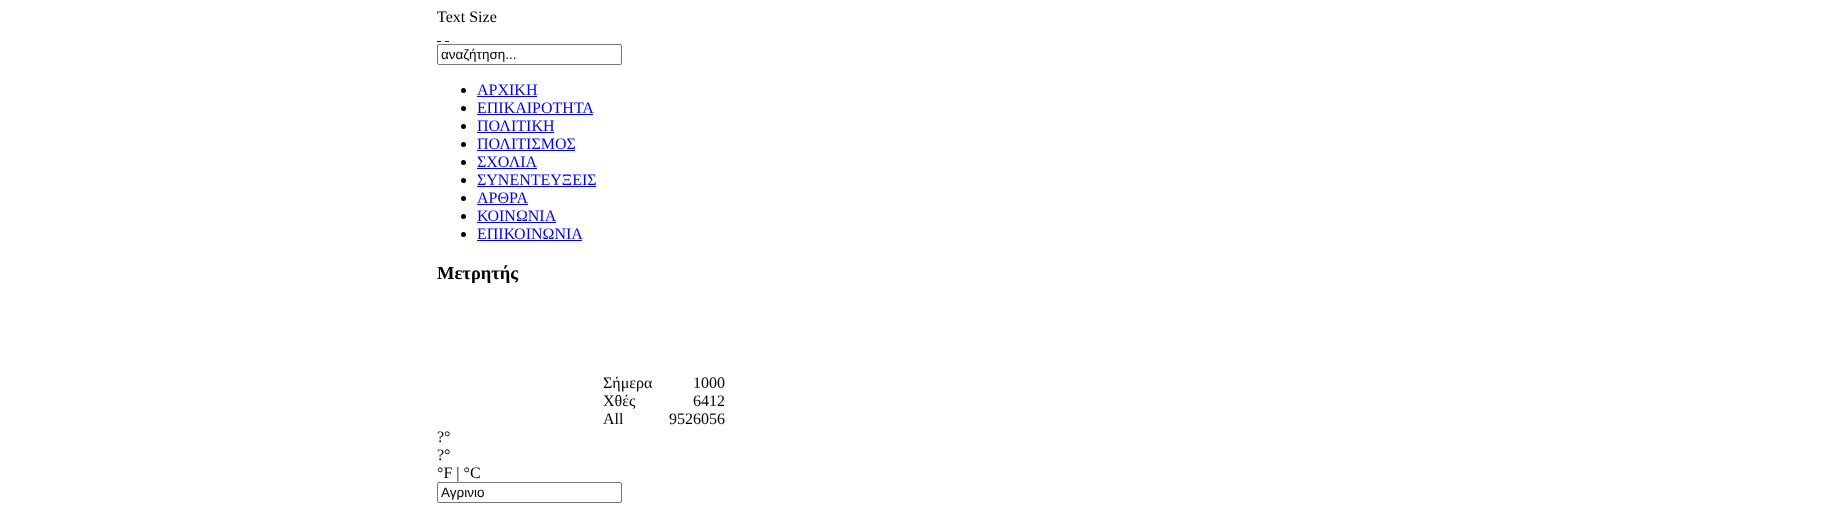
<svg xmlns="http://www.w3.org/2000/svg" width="1835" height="510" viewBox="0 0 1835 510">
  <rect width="100%" height="100%" fill="rgb(255,255,255)"/>
  <text x="437" y="22" font-family="Liberation Serif" font-size="16" fill="rgb(0,0,0)">Text Size</text>
  <rect x="437" y="41" width="4" height="1" fill="rgb(0,0,238)"/>
  <rect x="445" y="41" width="4" height="1" fill="rgb(0,0,238)"/>
  <rect x="437.5" y="44.5" width="184" height="20" rx="1.5" fill="none" stroke="rgb(118,118,118)"/>
  <text x="441" y="59" font-family="Liberation Sans" font-size="13.5" fill="rgb(0,0,0)">αναζήτηση...</text>
  <circle cx="463.5" cy="90.5" r="2.5" fill="rgb(0,0,0)"/>
  <text x="477" y="95" font-family="Liberation Serif" font-size="16" fill="rgb(0,0,238)">ΑΡΧΙΚΗ</text>
  <rect x="477" y="96" width="60" height="1" fill="rgb(0,0,238)"/>
  <circle cx="463.5" cy="108.5" r="2.5" fill="rgb(0,0,0)"/>
  <text x="477" y="113" font-family="Liberation Serif" font-size="16" fill="rgb(0,0,238)">ΕΠΙΚΑΙΡΟΤΗΤΑ</text>
  <rect x="477" y="114" width="116" height="1" fill="rgb(0,0,238)"/>
  <circle cx="463.5" cy="126.5" r="2.5" fill="rgb(0,0,0)"/>
  <text x="477" y="131" font-family="Liberation Serif" font-size="16" fill="rgb(0,0,238)">ΠΟΛΙΤΙΚΗ</text>
  <rect x="477" y="132" width="77" height="1" fill="rgb(0,0,238)"/>
  <circle cx="463.5" cy="144.5" r="2.5" fill="rgb(0,0,0)"/>
  <text x="477" y="149" font-family="Liberation Serif" font-size="16" fill="rgb(0,0,238)">ΠΟΛΙΤΙΣΜΟΣ</text>
  <rect x="477" y="150" width="98" height="1" fill="rgb(0,0,238)"/>
  <circle cx="463.5" cy="162.5" r="2.5" fill="rgb(0,0,0)"/>
  <text x="477" y="167" font-family="Liberation Serif" font-size="16" fill="rgb(0,0,238)">ΣΧΟΛΙΑ</text>
  <rect x="477" y="168" width="60" height="1" fill="rgb(0,0,238)"/>
  <circle cx="463.5" cy="180.5" r="2.5" fill="rgb(0,0,0)"/>
  <text x="477" y="185" font-family="Liberation Serif" font-size="16" fill="rgb(0,0,238)">ΣΥΝΕΝΤΕΥΞΕΙΣ</text>
  <rect x="477" y="186" width="119" height="1" fill="rgb(0,0,238)"/>
  <circle cx="463.5" cy="198.5" r="2.5" fill="rgb(0,0,0)"/>
  <text x="477" y="203" font-family="Liberation Serif" font-size="16" fill="rgb(0,0,238)">ΑΡΘΡΑ</text>
  <rect x="477" y="204" width="51" height="1" fill="rgb(0,0,238)"/>
  <circle cx="463.5" cy="216.5" r="2.5" fill="rgb(0,0,0)"/>
  <text x="477" y="221" font-family="Liberation Serif" font-size="16" fill="rgb(0,0,238)">ΚΟΙΝΩΝΙΑ</text>
  <rect x="477" y="222" width="79" height="1" fill="rgb(0,0,238)"/>
  <circle cx="463.5" cy="234.5" r="2.5" fill="rgb(0,0,0)"/>
  <text x="477" y="239" font-family="Liberation Serif" font-size="16" fill="rgb(0,0,238)">ΕΠΙΚΟΙΝΩΝΙΑ</text>
  <rect x="477" y="240" width="105" height="1" fill="rgb(0,0,238)"/>
  <text x="437" y="279" font-family="Liberation Serif" font-size="18.5" font-weight="bold" fill="rgb(0,0,0)">Μετρητής</text>
  <g font-family="Liberation Serif" font-size="16" fill="rgb(0,0,0)">
    <text x="603" y="388">Σήμερα</text>
    <text x="693" y="388">1000</text>
    <text x="603" y="406">Χθές</text>
    <text x="693" y="406">6412</text>
    <text x="603" y="424">All</text>
    <text x="669" y="424">9526056</text>
    <text>
      <tspan x="437" y="442">?°</tspan>
      <tspan x="437" y="460">?°</tspan>
      <tspan x="437" y="478">°F | °C</tspan>
    </text>
  </g>
  <rect x="437.5" y="482.5" width="184" height="20" rx="1.5" fill="none" stroke="rgb(118,118,118)"/>
  <text x="441" y="497" font-family="Liberation Sans" font-size="13.5" fill="rgb(0,0,0)">Αγρινιο</text>
</svg>
